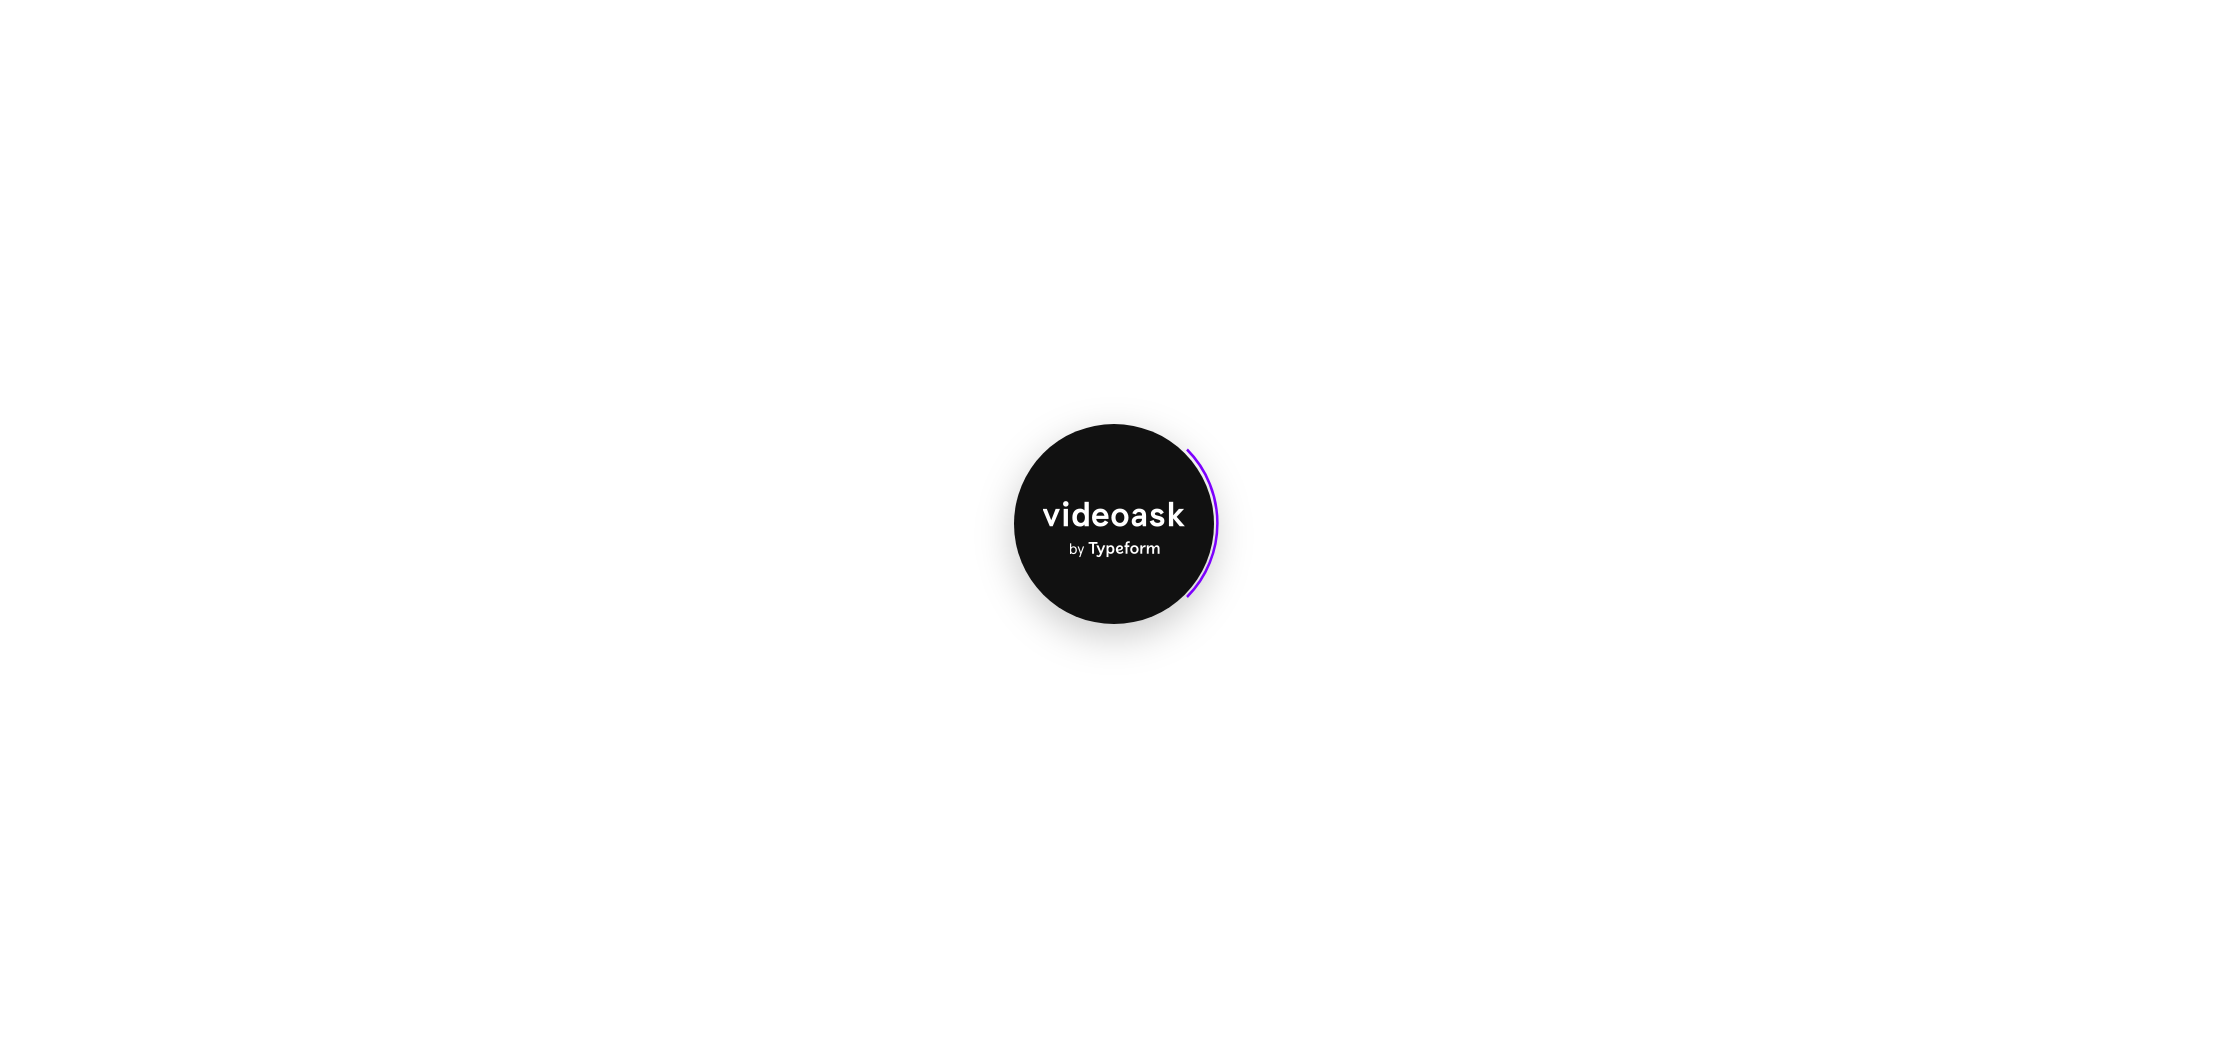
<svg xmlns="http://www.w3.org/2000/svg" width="2226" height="1046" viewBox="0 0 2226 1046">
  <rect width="100%" height="100%" fill="rgb(255,255,255)"/>
  <rect x="1014" y="436" width="200" height="200" rx="100" fill="rgba(0,0,0,0.21)" filter="blur(19px)"/>
  <circle cx="1114" cy="524" r="100" fill="rgb(17,17,17)"/>
  <image x="1043" y="501" width="142" height="57" href="pic1.png"/>
  <path d="M1187 449.5C1227.5 490 1227.5 556.5 1187 597" fill="none" stroke="rgb(125,0,254)" stroke-width="2.5"/>
</svg>
